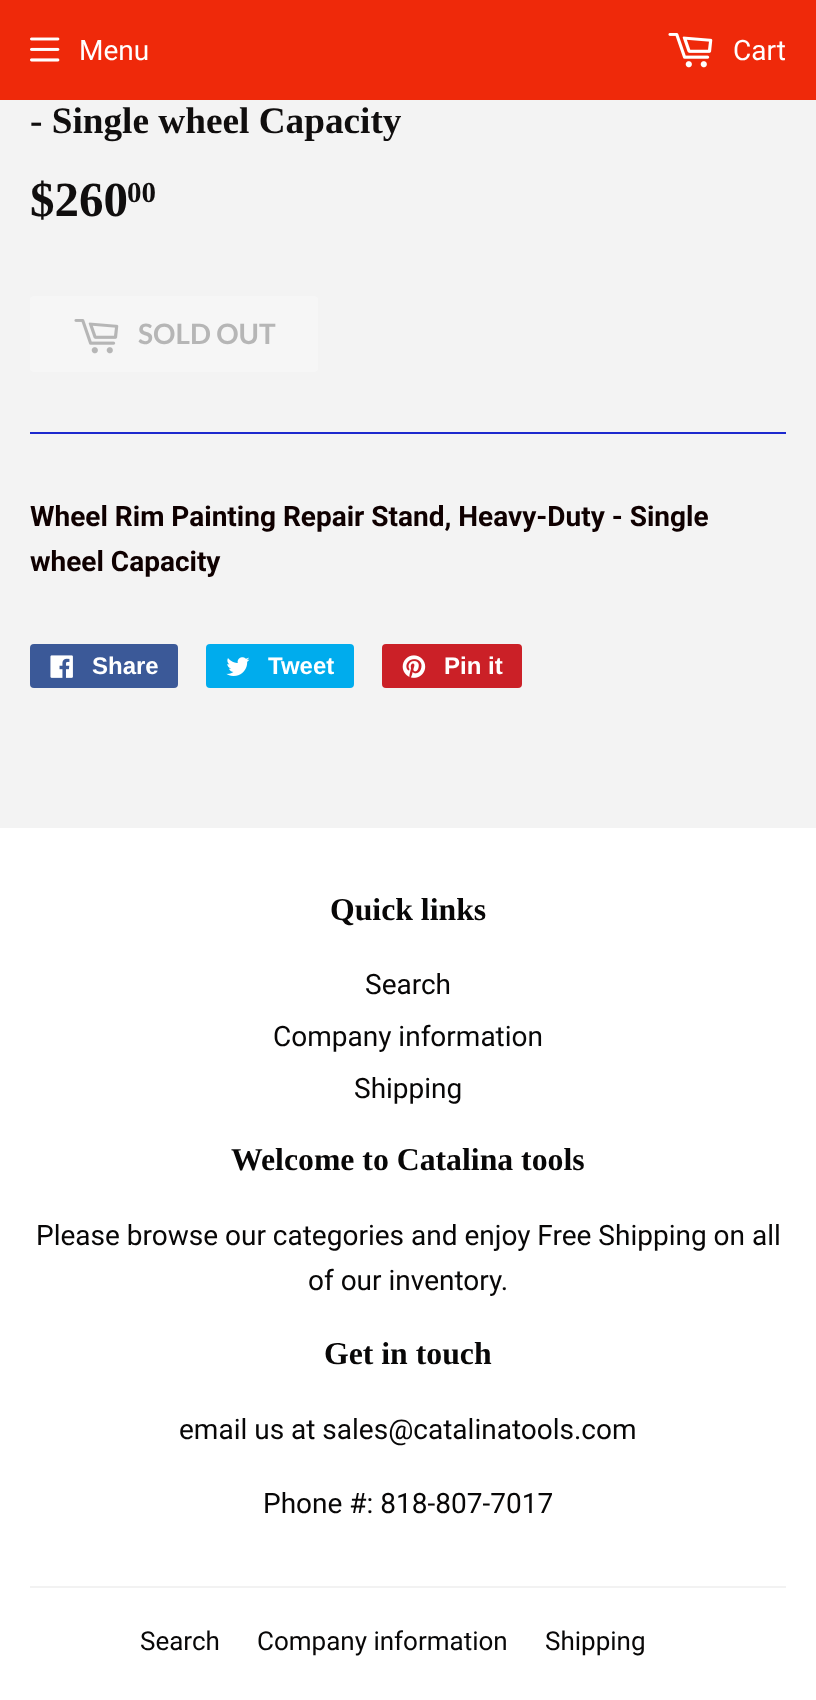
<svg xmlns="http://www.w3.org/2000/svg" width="816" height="1700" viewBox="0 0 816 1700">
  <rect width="100%" height="100%" fill="rgb(243,243,243)"/>
  <rect x="0" y="0" width="816" height="100" fill="rgb(239,41,10)"/>
  <image x="30" y="37" width="30" height="25" href="pic1.png"/>
  <text x="79" y="60" font-family="Roboto" font-size="28" fill="rgb(255,255,255)">Menu</text>
  <image x="668" y="33" width="45" height="35" href="pic2.png"/>
  <text x="733" y="60" font-family="Roboto" font-size="28" fill="rgb(255,255,255)">Cart</text>
  <text x="30" y="133" font-family="Liberation Serif" font-size="37.25" font-weight="bold" fill="rgb(16,14,14)">- Single wheel Capacity</text>
  <text x="30" y="216" font-family="Liberation Serif" font-size="49" font-weight="bold" fill="rgb(16,14,14)">$260</text>
  <text x="127" y="202" font-family="Liberation Serif" font-size="29" font-weight="bold" fill="rgb(16,14,14)">00</text>
  <rect x="30" y="296" width="288" height="76" rx="4" fill="rgb(246,246,246)"/>
  <image x="74" y="319" width="45" height="35" href="pic3.png"/>
  <text x="138" y="344" font-family="Lato" font-size="28" font-weight="bold" fill="rgb(182,182,182)">SOLD OUT</text>
  <rect x="30" y="432" width="756" height="2" fill="rgb(28,41,206)"/>
  <g font-family="Roboto" font-size="28" font-weight="bold" fill="rgb(15,0,0)">
    <text>
      <tspan x="30" y="526">Wheel Rim Painting Repair Stand, Heavy-Duty - Single</tspan>
      <tspan x="30" y="571">wheel Capacity</tspan>
    </text>
  </g>
  <rect x="30" y="644" width="148" height="44" rx="4" fill="rgb(59,89,152)"/>
  <image x="50" y="655" width="23" height="23" href="pic4.png"/>
  <text x="92" y="674" font-family="Liberation Sans" font-size="24" font-weight="bold" fill="rgb(255,255,255)">Share</text>
  <rect x="206" y="644" width="148" height="44" rx="4" fill="rgb(0,172,237)"/>
  <image x="226" y="657" width="24" height="19" href="pic5.png"/>
  <text x="268" y="674" font-family="Liberation Sans" font-size="24" font-weight="bold" fill="rgb(255,255,255)">Tweet</text>
  <rect x="382" y="644" width="140" height="44" rx="4" fill="rgb(203,32,39)"/>
  <image x="402" y="655" width="24" height="23" href="pic6.png"/>
  <text x="444" y="674" font-family="Liberation Sans" font-size="24" font-weight="bold" fill="rgb(255,255,255)">Pin it</text>
  <rect x="0" y="828" width="816" height="872" fill="rgb(255,255,255)"/>
  <text x="330" y="920" font-family="Liberation Serif" font-size="31.75" font-weight="bold" fill="rgb(8,7,7)">Quick links</text>
  <g font-family="Roboto" font-size="28" fill="rgb(8,7,7)">
    <text x="365" y="994">Search</text>
    <text x="273" y="1046">Company information</text>
    <text x="354" y="1098">Shipping</text>
  </g>
  <text x="231" y="1170" font-family="Liberation Serif" font-size="31.75" font-weight="bold" fill="rgb(8,7,7)">Welcome to Catalina tools</text>
  <g font-family="Roboto" font-size="28" fill="rgb(8,7,7)">
    <text x="36" y="1245">Please browse our categories and enjoy Free Shipping on all</text>
    <text x="308" y="1290">of our inventory.</text>
  </g>
  <text x="324" y="1364" font-family="Liberation Serif" font-size="31.75" font-weight="bold" fill="rgb(8,7,7)">Get in touch</text>
  <g font-family="Roboto" font-size="28" fill="rgb(8,7,7)">
    <text x="179" y="1439">email us at sales@catalinatools.com</text>
    <text x="263" y="1513">Phone #: 818-807-7017</text>
  </g>
  <rect x="30" y="1586" width="756" height="2" fill="rgb(242,242,242)"/>
  <g font-family="Roboto" font-size="26" fill="rgb(8,7,7)">
    <text x="140" y="1650">Search</text>
    <text x="257" y="1650">Company information</text>
    <text x="545" y="1650">Shipping</text>
  </g>
</svg>
